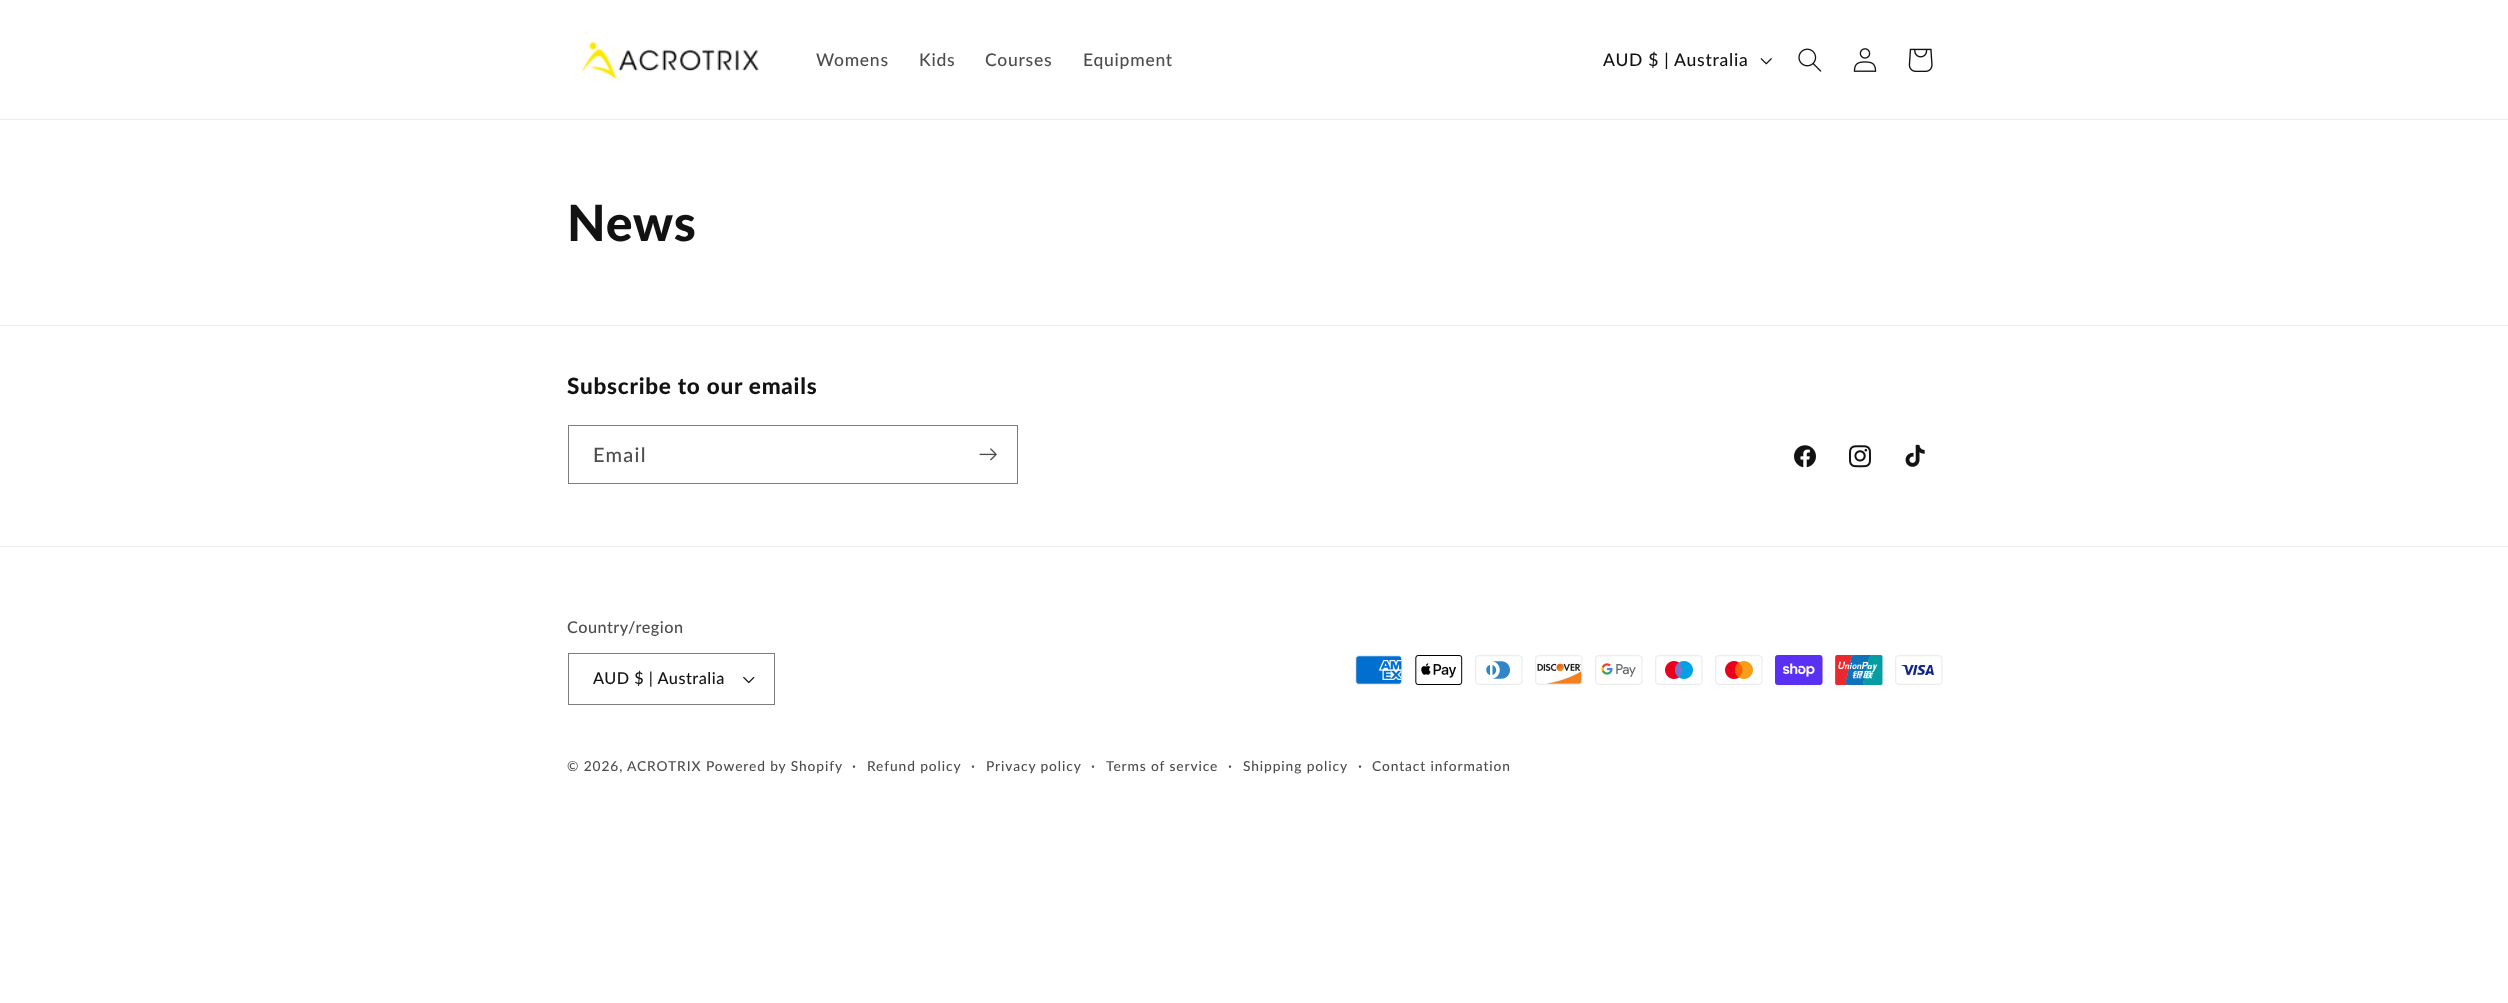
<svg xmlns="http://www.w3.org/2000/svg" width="2508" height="1003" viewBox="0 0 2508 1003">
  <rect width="100%" height="100%" fill="rgb(255,255,255)"/>
  <rect x="0" y="119" width="2508" height="1" fill="rgb(236,236,236)"/>
  <image x="581" y="41" width="178" height="38" href="pic1.png"/>
  <g font-family="Lato" font-size="17.5" font-weight="500" letter-spacing="0.75" fill="rgb(77,77,77)">
    <text x="816" y="66">Womens</text>
    <text x="919" y="66">Kids</text>
    <text x="985" y="66">Courses</text>
    <text x="1083" y="66">Equipment</text>
  </g>
  <text x="1603" y="66" font-family="Lato" font-size="17.5" font-weight="500" letter-spacing="0.75" fill="rgb(18,18,18)">AUD $ | Australia</text>
  <image x="1760" y="58" width="12" height="7" href="pic2.png"/>
  <image x="1798" y="48" width="24" height="24" href="pic3.png"/>
  <image x="1853" y="48" width="24" height="24" href="pic4.png"/>
  <image x="1908" y="48" width="25" height="24" href="pic5.png"/>
  <text x="567" y="241" font-family="Lato" font-size="50" font-weight="900" letter-spacing="0.75" fill="rgb(18,18,18)">News</text>
  <rect x="0" y="325" width="2508" height="1" fill="rgb(236,236,236)"/>
  <text x="567" y="394" font-family="Lato" font-size="22.5" font-weight="900" letter-spacing="0.75" fill="rgb(18,18,18)">Subscribe to our emails</text>
  <rect x="568.5" y="425.5" width="449" height="58" fill="none" stroke="rgb(125,125,125)"/>
  <text x="593" y="462" font-family="Lato" font-size="20" font-weight="500" letter-spacing="1.25" fill="rgb(77,77,77)">Email</text>
  <image x="979" y="448" width="18" height="13" href="pic6.png"/>
  <image x="1794" y="445" width="22" height="23" href="pic7.png"/>
  <image x="1849" y="445" width="22" height="23" href="pic8.png"/>
  <image x="1905" y="444" width="20" height="23" href="pic9.png"/>
  <rect x="0" y="546" width="2508" height="1" fill="rgb(236,236,236)"/>
  <text x="567" y="633" font-family="Lato" font-size="16.25" font-weight="500" letter-spacing="0.5" fill="rgb(77,77,77)">Country/region</text>
  <image x="743" y="676" width="12" height="8" href="pic10.png"/>
  <rect x="568.5" y="653.5" width="206" height="51" fill="none" stroke="rgb(125,125,125)"/>
  <text x="593" y="684" font-family="Lato" font-size="16.25" font-weight="500" letter-spacing="0.5" fill="rgb(18,18,18)">AUD $ | Australia</text>
  <image x="1355" y="655" width="48" height="30" href="pic11.png"/>
  <image x="1415" y="655" width="48" height="30" href="pic12.png"/>
  <image x="1475" y="655" width="48" height="30" href="pic13.png"/>
  <image x="1535" y="655" width="48" height="30" href="pic14.png"/>
  <image x="1595" y="655" width="48" height="30" href="pic15.png"/>
  <image x="1655" y="655" width="48" height="30" href="pic16.png"/>
  <image x="1715" y="655" width="48" height="30" href="pic17.png"/>
  <image x="1775" y="655" width="48" height="30" href="pic18.png"/>
  <image x="1835" y="655" width="48" height="30" href="pic19.png"/>
  <image x="1895" y="655" width="48" height="30" href="pic20.png"/>
  <g font-family="Lato" font-size="13.75" font-weight="500" letter-spacing="0.9" fill="rgb(77,77,77)">
    <text x="567" y="771">© 2026,</text>
    <text x="627" y="771">ACROTRIX</text>
    <text x="706" y="771">Powered by Shopify</text>
  </g>
  <text x="852" y="771" font-family="Lato" font-size="15" font-weight="500" letter-spacing="0.9" fill="rgb(77,77,77)">·</text>
  <text x="867" y="771" font-family="Lato" font-size="13.75" font-weight="500" letter-spacing="0.9" fill="rgb(77,77,77)">Refund policy</text>
  <text x="971" y="771" font-family="Lato" font-size="15" font-weight="500" letter-spacing="0.9" fill="rgb(77,77,77)">·</text>
  <text x="986" y="771" font-family="Lato" font-size="13.75" font-weight="500" letter-spacing="0.9" fill="rgb(77,77,77)">Privacy policy</text>
  <text x="1091" y="771" font-family="Lato" font-size="15" font-weight="500" letter-spacing="0.9" fill="rgb(77,77,77)">·</text>
  <text x="1106" y="771" font-family="Lato" font-size="13.75" font-weight="500" letter-spacing="0.9" fill="rgb(77,77,77)">Terms of service</text>
  <text x="1228" y="771" font-family="Lato" font-size="15" font-weight="500" letter-spacing="0.9" fill="rgb(77,77,77)">·</text>
  <text x="1243" y="771" font-family="Lato" font-size="13.75" font-weight="500" letter-spacing="0.9" fill="rgb(77,77,77)">Shipping policy</text>
  <text x="1358" y="771" font-family="Lato" font-size="15" font-weight="500" letter-spacing="0.9" fill="rgb(77,77,77)">·</text>
  <text x="1372" y="771" font-family="Lato" font-size="13.75" font-weight="500" letter-spacing="0.9" fill="rgb(77,77,77)">Contact information</text>
</svg>
